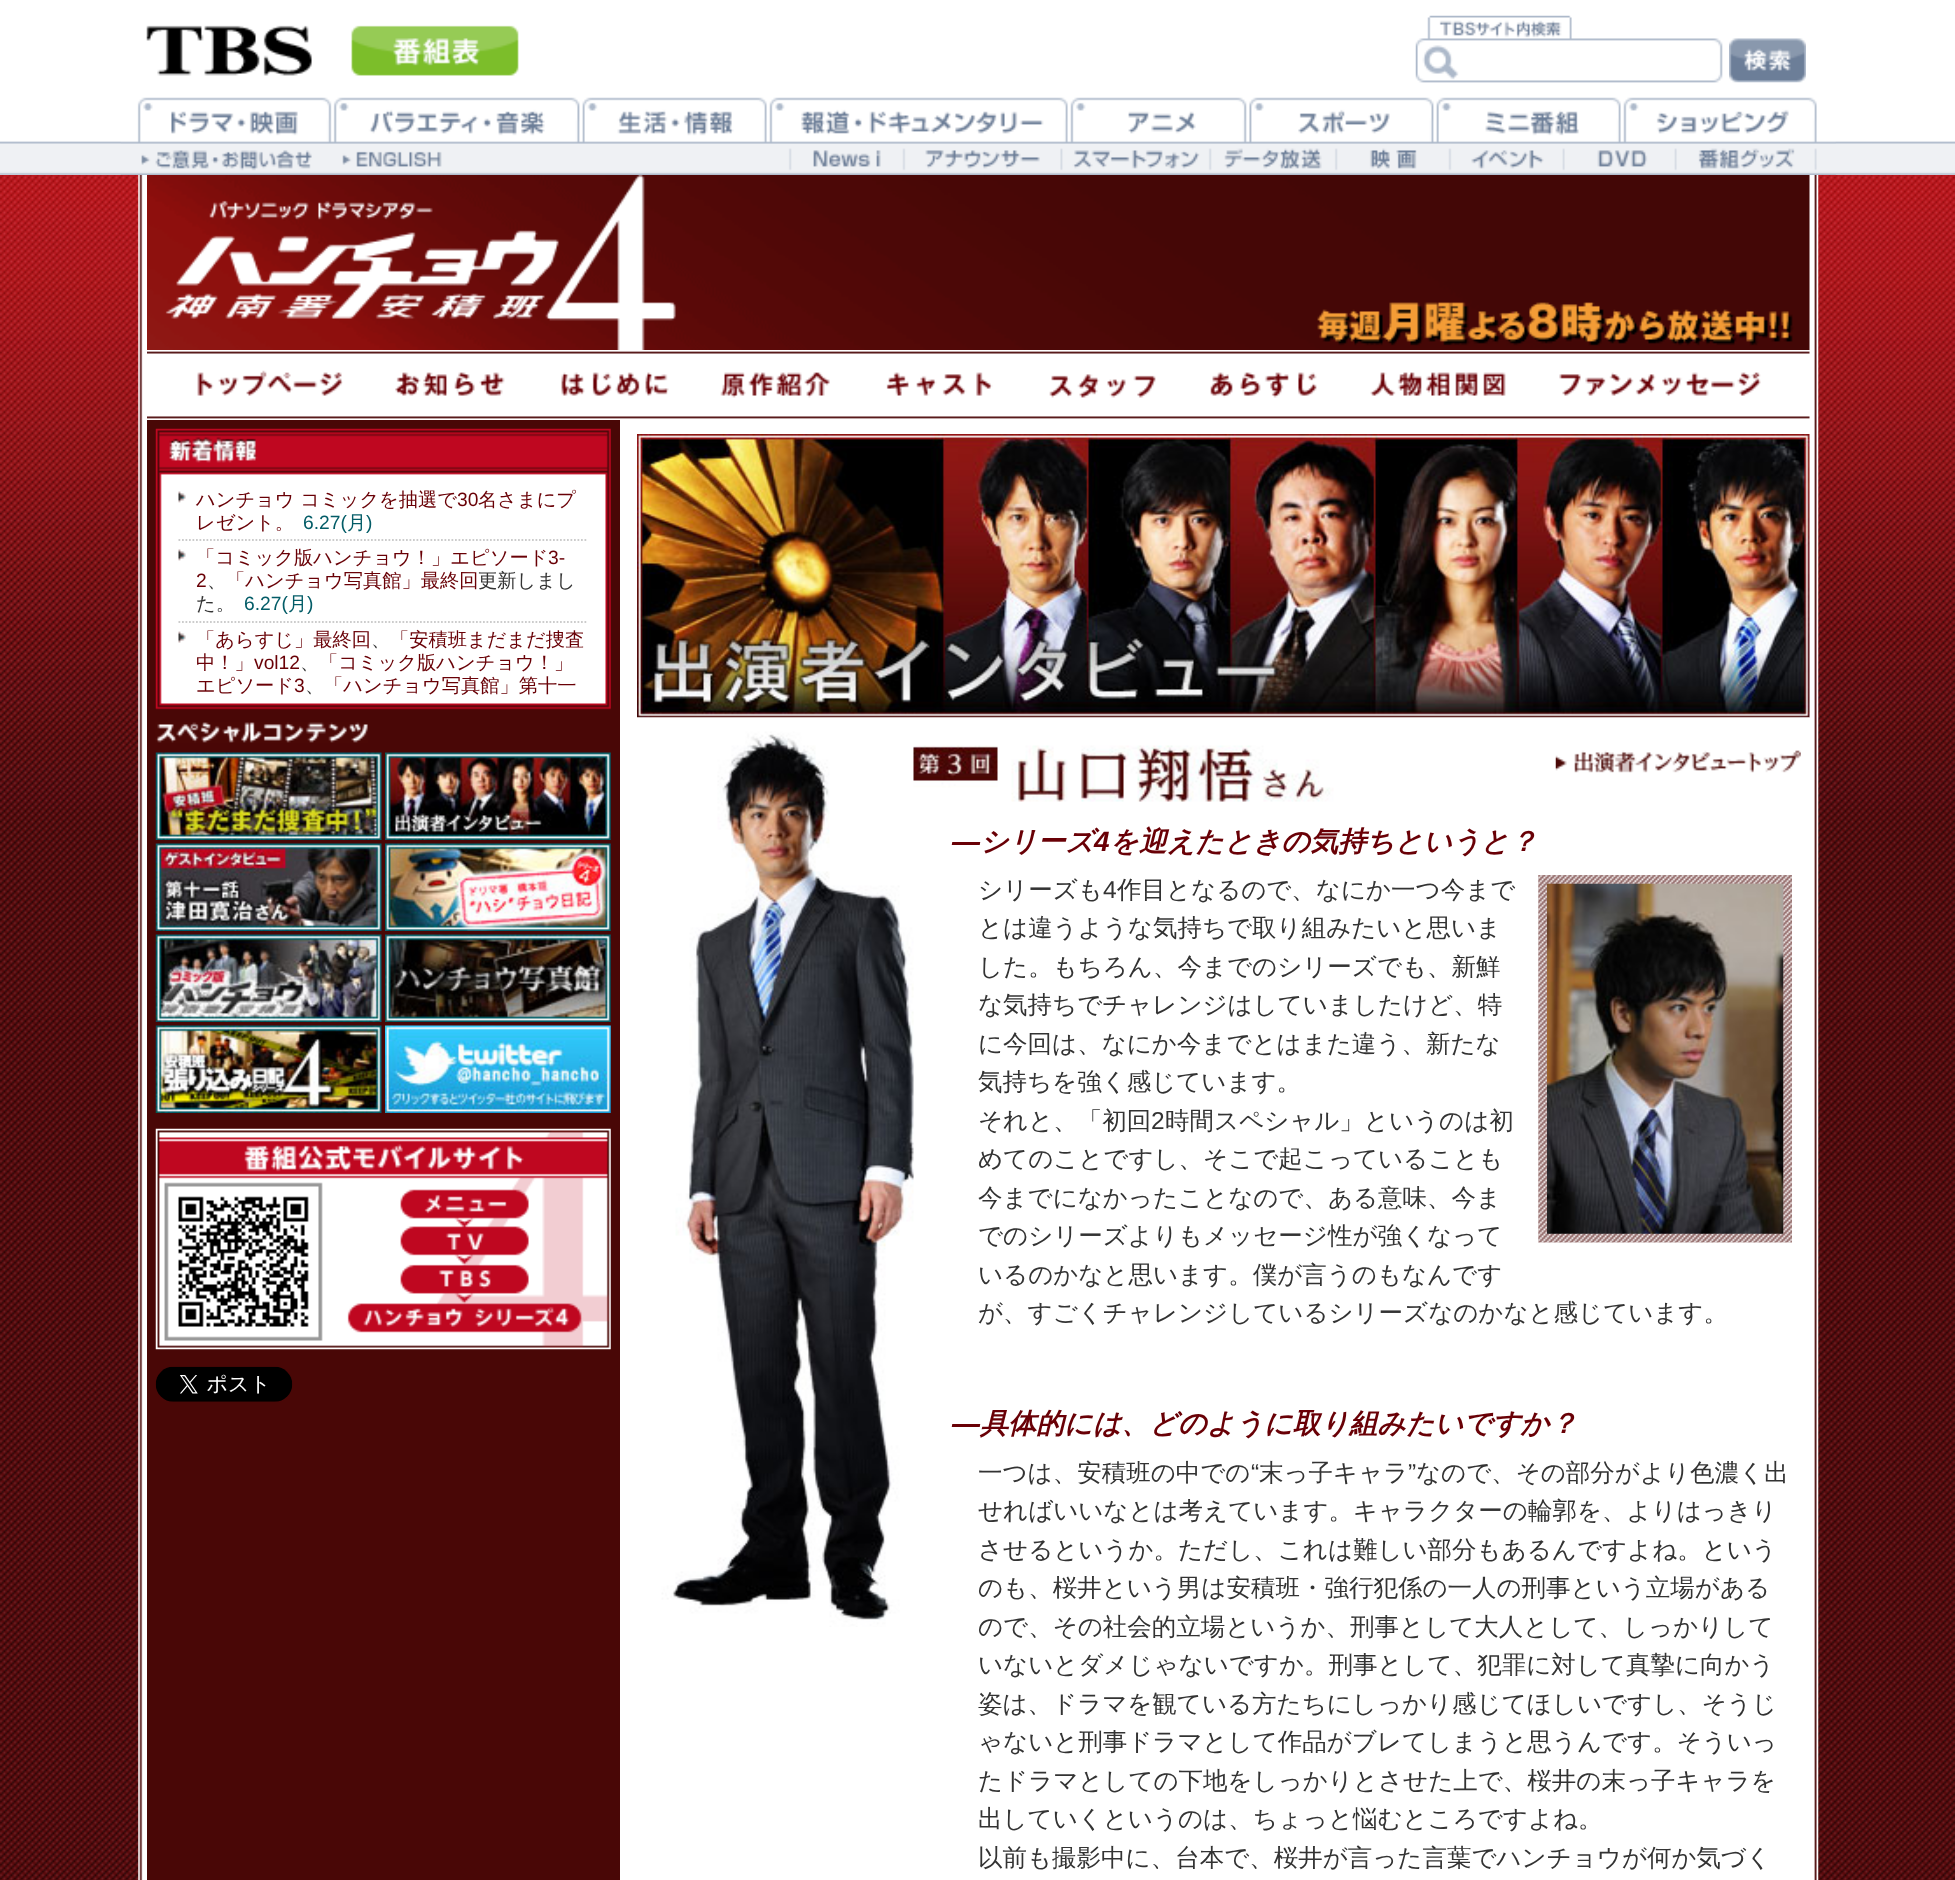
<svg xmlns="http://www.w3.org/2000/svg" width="1955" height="1880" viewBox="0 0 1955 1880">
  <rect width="100%" height="100%" fill="rgb(255,255,255)"/>
  <image x="0" y="1016" width="1955" height="864" href="pic1.png"/>
  <image x="0" y="141" width="1955" height="34" href="pic2.png"/>
  <image x="146" y="25" width="373" height="51" href="pic3.png"/>
  <image x="1415" y="15" width="308" height="68" href="pic4.png"/>
  <image x="1729" y="38" width="77" height="45" href="pic5.png"/>
  <image x="120" y="97" width="1716" height="78" href="pic6.png"/>
  <image x="0" y="175" width="1955" height="842" href="pic7.png"/>
  <image x="138" y="175" width="1681" height="1705" href="pic8.png"/>
  <image x="147" y="175" width="1663" height="175" href="pic9.png"/>
  <image x="147" y="351" width="1663" height="68" href="pic10.png"/>
  <image x="197" y="370" width="146" height="26" href="pic11.png"/>
  <image x="395" y="372" width="110" height="24" href="pic12.png"/>
  <image x="561" y="372" width="108" height="24" href="pic13.png"/>
  <image x="720" y="372" width="110" height="26" href="pic14.png"/>
  <image x="886" y="372" width="107" height="24" href="pic15.png"/>
  <image x="1049" y="374" width="107" height="24" href="pic16.png"/>
  <image x="1210" y="372" width="107" height="26" href="pic17.png"/>
  <image x="1370" y="372" width="136" height="24" href="pic18.png"/>
  <image x="1559" y="372" width="202" height="24" href="pic19.png"/>
  <rect x="147" y="420" width="473" height="1460" fill="rgb(73,7,6)"/>
  <image x="155" y="428" width="456" height="282" href="pic20.png"/>
  <image x="178" y="491" width="8" height="12" href="pic21.png"/>
  <path d="M178.5 540H588" fill="none" stroke="rgb(204,204,204)" stroke-width="1.8" stroke-dasharray="1.75 1.75"/>
  <text x="196" y="506" font-family="WenQuanYi Zen Hei" font-size="19.25" font-weight="500" fill="rgb(105,0,6)">ハンチョウ コミックを抽選で</text>
  <text x="457" y="506" font-family="Liberation Sans" font-size="19.25" fill="rgb(105,0,6)">30</text>
  <g font-family="WenQuanYi Zen Hei" font-size="19.25" font-weight="500" fill="rgb(105,0,6)">
    <text x="478" y="506">名さまにプ</text>
    <text x="196" y="529">レゼント。</text>
  </g>
  <text x="303" y="529" font-family="Liberation Sans" font-size="19.25" fill="rgb(3,92,103)">6.27(</text>
  <text x="347" y="529" font-family="WenQuanYi Zen Hei" font-size="19.25" font-weight="500" fill="rgb(3,92,103)">月</text>
  <text x="366" y="529" font-family="Liberation Sans" font-size="19.25" fill="rgb(3,92,103)">)</text>
  <image x="178" y="549" width="8" height="12" href="pic22.png"/>
  <path d="M178.5 622H588" fill="none" stroke="rgb(204,204,204)" stroke-width="1.8" stroke-dasharray="1.75 1.75"/>
  <text x="196" y="564" font-family="WenQuanYi Zen Hei" font-size="19.25" font-weight="500" fill="rgb(105,0,6)">「コミック版ハンチョウ！」エピソード</text>
  <g font-family="Liberation Sans" font-size="19.25" fill="rgb(105,0,6)">
    <text x="548" y="564">3-</text>
    <text x="196" y="587">2</text>
  </g>
  <text x="226" y="587" font-family="WenQuanYi Zen Hei" font-size="19.25" font-weight="500" fill="rgb(105,0,6)">「ハンチョウ写真館」最終回</text>
  <g font-family="WenQuanYi Zen Hei" font-size="19.25" font-weight="500" fill="rgb(51,51,51)">
    <text x="478" y="587">更新しまし</text>
    <text x="207" y="587">、</text>
    <text x="196" y="610">た。</text>
  </g>
  <text x="244" y="610" font-family="Liberation Sans" font-size="19.25" fill="rgb(3,92,103)">6.27(</text>
  <text x="288" y="610" font-family="WenQuanYi Zen Hei" font-size="19.25" font-weight="500" fill="rgb(3,92,103)">月</text>
  <text x="307" y="610" font-family="Liberation Sans" font-size="19.25" fill="rgb(3,92,103)">)</text>
  <image x="178" y="631" width="8" height="12" href="pic23.png"/>
  <text x="196" y="646" font-family="WenQuanYi Zen Hei" font-size="19.25" font-weight="500" fill="rgb(105,0,6)">「あらすじ」最終回</text>
  <text x="371" y="646" font-family="WenQuanYi Zen Hei" font-size="19.25" font-weight="500" fill="rgb(51,51,51)">、</text>
  <g font-family="WenQuanYi Zen Hei" font-size="19.25" font-weight="500" fill="rgb(105,0,6)">
    <text x="390" y="646">「安積班まだまだ捜査</text>
    <text x="196" y="669">中！」</text>
  </g>
  <text x="254" y="669" font-family="Liberation Sans" font-size="19.25" fill="rgb(105,0,6)">vol12</text>
  <text x="300" y="669" font-family="WenQuanYi Zen Hei" font-size="19.25" font-weight="500" fill="rgb(51,51,51)">、</text>
  <g font-family="WenQuanYi Zen Hei" font-size="19.25" font-weight="500" fill="rgb(105,0,6)">
    <text x="319" y="669">「コミック版ハンチョウ！」</text>
    <text x="196" y="692">エピソード</text>
  </g>
  <text x="294" y="692" font-family="Liberation Sans" font-size="19.25" fill="rgb(105,0,6)">3</text>
  <text x="305" y="692" font-family="WenQuanYi Zen Hei" font-size="19.25" font-weight="500" fill="rgb(51,51,51)">、</text>
  <text x="324" y="692" font-family="WenQuanYi Zen Hei" font-size="19.25" font-weight="500" fill="rgb(105,0,6)">「ハンチョウ写真館」第十一</text>
  <image x="155" y="722" width="213" height="21" href="pic24.png"/>
  <image x="155" y="752" width="227" height="88" href="pic25.png"/>
  <image x="385" y="752" width="226" height="88" href="pic26.png"/>
  <image x="155" y="843" width="227" height="88" href="pic27.png"/>
  <image x="385" y="843" width="226" height="88" href="pic28.png"/>
  <image x="155" y="934" width="227" height="88" href="pic29.png"/>
  <image x="385" y="934" width="226" height="88" href="pic30.png"/>
  <image x="155" y="1025" width="227" height="88" href="pic31.png"/>
  <image x="385" y="1025" width="226" height="88" href="pic32.png"/>
  <image x="155" y="1128" width="456" height="222" href="pic33.png"/>
  <image x="155" y="1366" width="138" height="36" href="pic34.png"/>
  <image x="637" y="434" width="1173" height="284" href="pic35.png"/>
  <image x="637" y="717" width="1173" height="910" href="pic36.png"/>
  <image x="1555" y="750" width="246" height="23" href="pic37.png"/>
  <text x="952" y="851" font-family="Liberation Sans" font-size="28" font-weight="bold" font-style="italic" fill="rgb(105,0,6)">―</text>
  <text x="980" y="851" font-family="WenQuanYi Zen Hei" font-size="28" font-weight="bold" font-style="italic" fill="rgb(105,0,6)">シリーズ</text>
  <text x="1094" y="851" font-family="Liberation Sans" font-size="28" font-weight="bold" font-style="italic" fill="rgb(105,0,6)">4</text>
  <text x="1110" y="851" font-family="WenQuanYi Zen Hei" font-size="28" font-weight="bold" font-style="italic" fill="rgb(105,0,6)">を迎えたときの気持ちというと？</text>
  <image x="1538" y="875" width="254" height="368" href="pic38.png"/>
  <image x="1547" y="883" width="237" height="351" href="pic39.png"/>
  <text x="978" y="898" font-family="WenQuanYi Zen Hei" font-size="24.5" font-weight="500" fill="rgb(51,51,51)">シリーズも</text>
  <text x="1103" y="898" font-family="Liberation Sans" font-size="24.5" fill="rgb(51,51,51)">4</text>
  <g font-family="WenQuanYi Zen Hei" font-size="24.5" font-weight="500" fill="rgb(51,51,51)">
    <text x="1117" y="898">作目となるので、なにか一つ今まで</text>
    <text>
      <tspan x="978" y="936">とは違うような気持ちで取り組みたいと思いま</tspan>
      <tspan x="978" y="975">した。もちろん、今までのシリーズでも、新鮮</tspan>
      <tspan x="978" y="1013">な気持ちでチャレンジはしていましたけど、特</tspan>
      <tspan x="978" y="1052">に今回は、なにか今までとはまた違う、新たな</tspan>
      <tspan x="978" y="1090">気持ちを強く感じています。</tspan>
      <tspan x="978" y="1129">それと、「初回</tspan>
    </text>
  </g>
  <text x="1151" y="1129" font-family="Liberation Sans" font-size="24.5" fill="rgb(51,51,51)">2</text>
  <g font-family="WenQuanYi Zen Hei" font-size="24.5" font-weight="500" fill="rgb(51,51,51)">
    <text x="1165" y="1129">時間スペシャル」というのは初</text>
    <text>
      <tspan x="978" y="1167">めてのことですし、そこで起こっていることも</tspan>
      <tspan x="978" y="1206">今までになかったことなので、ある意味、今ま</tspan>
      <tspan x="978" y="1244">でのシリーズよりもメッセージ性が強くなって</tspan>
      <tspan x="978" y="1283">いるのかなと思います。僕が言うのもなんです</tspan>
      <tspan x="978" y="1321">が、すごくチャレンジしているシリーズなのかなと感じています。</tspan>
    </text>
  </g>
  <text x="952" y="1433" font-family="Liberation Sans" font-size="28" font-weight="bold" font-style="italic" fill="rgb(105,0,6)">―</text>
  <text x="980" y="1433" font-family="WenQuanYi Zen Hei" font-size="28" font-weight="bold" font-style="italic" fill="rgb(105,0,6)">具体的には、どのように取り組みたいですか？</text>
  <text x="978" y="1481" font-family="WenQuanYi Zen Hei" font-size="24.5" font-weight="500" fill="rgb(51,51,51)">一つは、安積班の中での</text>
  <text x="1251" y="1481" font-family="Liberation Sans" font-size="24.5" fill="rgb(51,51,51)">“</text>
  <text x="1259" y="1481" font-family="WenQuanYi Zen Hei" font-size="24.5" font-weight="500" fill="rgb(51,51,51)">末っ子キャラ</text>
  <text x="1408" y="1481" font-family="Liberation Sans" font-size="24.5" fill="rgb(51,51,51)">”</text>
  <g font-family="WenQuanYi Zen Hei" font-size="24.5" font-weight="500" fill="rgb(51,51,51)">
    <text x="1416" y="1481">なので、その部分がより色濃く出</text>
    <text>
      <tspan x="978" y="1519">せればいいなとは考えています。キャラクターの輪郭を、よりはっきり</tspan>
      <tspan x="978" y="1558">させるというか。ただし、これは難しい部分もあるんですよね。という</tspan>
      <tspan x="978" y="1596">のも、桜井という男は安積班・強行犯係の一人の刑事という立場がある</tspan>
      <tspan x="978" y="1635">ので、その社会的立場というか、刑事として大人として、しっかりして</tspan>
      <tspan x="978" y="1673">いないとダメじゃないですか。刑事として、犯罪に対して真摯に向かう</tspan>
      <tspan x="978" y="1712">姿は、ドラマを観ている方たちにしっかり感じてほしいですし、そうじ</tspan>
      <tspan x="978" y="1750">ゃないと刑事ドラマとして作品がブレてしまうと思うんです。そういっ</tspan>
      <tspan x="978" y="1789">たドラマとしての下地をしっかりとさせた上で、桜井の末っ子キャラを</tspan>
      <tspan x="978" y="1827">出していくというのは、ちょっと悩むところですよね。</tspan>
      <tspan x="978" y="1866">以前も撮影中に、台本で、桜井が言った言葉でハンチョウが何か気づく</tspan>
    </text>
  </g>
</svg>
